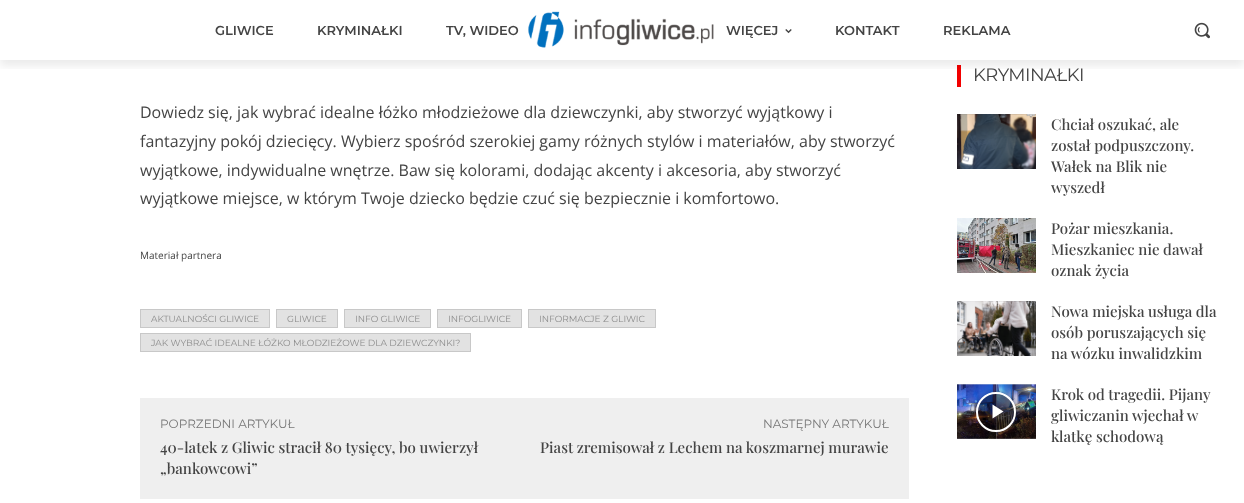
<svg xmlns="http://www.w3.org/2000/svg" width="1244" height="503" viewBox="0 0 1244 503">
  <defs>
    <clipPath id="clip1"><rect x="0" y="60" width="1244" height="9"/></clipPath>
    <clipPath id="clip2"><path d="M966 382H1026V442H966ZM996 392C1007 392 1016 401 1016 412C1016 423 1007 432 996 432C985 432 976 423 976 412C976 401 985 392 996 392Z" clip-rule="evenodd"/></clipPath>
  </defs>
  <rect width="100%" height="100%" fill="rgb(255,255,255)"/>
  <image x="528" y="11" width="186" height="37" href="pic1.png"/>
  <rect x="957" y="65" width="4" height="22" fill="rgb(242,0,0)"/>
  <g clip-path="url(#clip1)">
    <rect x="0" y="6" width="1244" height="60" fill="rgba(0,0,0,0.08)" filter="blur(4px)"/>
  </g>
  <g font-family="Montserrat" font-size="13" font-weight="600" fill="rgb(68,68,68)">
    <text x="215" y="35">GLIWICE</text>
    <text x="317" y="35">KRYMINAŁKI</text>
    <text x="446" y="35">TV, WIDEO</text>
    <text x="726" y="35">WIĘCEJ</text>
  </g>
  <image x="785" y="29" width="7" height="5" href="pic2.png"/>
  <g font-family="Montserrat" font-size="13" font-weight="600" fill="rgb(68,68,68)">
    <text x="835" y="35">KONTAKT</text>
    <text x="943" y="35">REKLAMA</text>
  </g>
  <image x="1194" y="22" width="16" height="17" href="pic3.png"/>
  <g font-family="Open Sans" font-size="16" fill="rgb(68,68,68)">
    <text>
      <tspan x="140" y="118">Dowiedz się, jak wybrać idealne łóżko młodzieżowe dla dziewczynki, aby stworzyć wyjątkowy i</tspan>
      <tspan x="140" y="147">fantazyjny pokój dziecięcy. Wybierz spośród szerokiej gamy różnych stylów i materiałów, aby stworzyć</tspan>
      <tspan x="140" y="176">wyjątkowe, indywidualne wnętrze. Baw się kolorami, dodając akcenty i akcesoria, aby stworzyć</tspan>
      <tspan x="140" y="204">wyjątkowe miejsce, w którym Twoje dziecko będzie czuć się bezpiecznie i komfortowo.</tspan>
    </text>
  </g>
  <text x="140" y="259" font-family="Open Sans" font-size="10" fill="rgb(68,68,68)">Materiał partnera</text>
  <rect x="140.5" y="309.5" width="129" height="18" fill="rgb(226,226,226)" stroke="rgb(200,200,200)"/>
  <text x="151" y="322" font-family="Montserrat" font-size="9" fill="rgb(140,140,140)">AKTUALNOŚCI GLIWICE</text>
  <rect x="276.5" y="309.5" width="61" height="18" fill="rgb(226,226,226)" stroke="rgb(200,200,200)"/>
  <text x="287" y="322" font-family="Montserrat" font-size="9" fill="rgb(140,140,140)">GLIWICE</text>
  <rect x="344.5" y="309.5" width="86" height="18" fill="rgb(226,226,226)" stroke="rgb(200,200,200)"/>
  <text x="355" y="322" font-family="Montserrat" font-size="9" fill="rgb(140,140,140)">INFO GLIWICE</text>
  <rect x="437.5" y="309.5" width="84" height="18" fill="rgb(226,226,226)" stroke="rgb(200,200,200)"/>
  <text x="448" y="322" font-family="Montserrat" font-size="9" fill="rgb(140,140,140)">INFOGLIWICE</text>
  <rect x="528.5" y="309.5" width="127" height="18" fill="rgb(226,226,226)" stroke="rgb(200,200,200)"/>
  <text x="539" y="322" font-family="Montserrat" font-size="9" fill="rgb(140,140,140)">INFORMACJE Z GLIWIC</text>
  <rect x="140.5" y="333.5" width="330" height="18" fill="rgb(226,226,226)" stroke="rgb(200,200,200)"/>
  <text x="151" y="346" font-family="Montserrat" font-size="9" fill="rgb(140,140,140)">JAK WYBRAĆ IDEALNE ŁÓŻKO MŁODZIEŻOWE DLA DZIEWCZYNKI?</text>
  <rect x="140" y="398" width="769" height="101" fill="rgb(239,239,239)"/>
  <text x="160" y="428" font-family="Montserrat" font-size="12" fill="rgb(119,119,119)">POPRZEDNI ARTYKUŁ</text>
  <g font-family="Playfair Display" font-size="15" font-weight="500" fill="rgb(68,68,68)">
    <text>
      <tspan x="160" y="453">40-latek z Gliwic stracił 80 tysięcy, bo uwierzył</tspan>
      <tspan x="160" y="474">„bankowcowi”</tspan>
    </text>
  </g>
  <text x="763" y="428" font-family="Montserrat" font-size="12" fill="rgb(119,119,119)">NASTĘPNY ARTYKUŁ</text>
  <text x="540" y="453" font-family="Playfair Display" font-size="15" font-weight="500" fill="rgb(68,68,68)">Piast zremisował z Lechem na koszmarnej murawie</text>
  <text x="973" y="81" font-family="Montserrat" font-size="18" letter-spacing="-0.5" fill="rgb(68,68,68)">KRYMINAŁKI</text>
  <image x="957" y="114" width="79" height="55" href="pic4.png"/>
  <g font-family="Playfair Display" font-size="15" font-weight="500" fill="rgb(68,68,68)">
    <text>
      <tspan x="1051" y="130">Chciał oszukać, ale</tspan>
      <tspan x="1051" y="151">został podpuszczony.</tspan>
      <tspan x="1051" y="172">Wałek na Blik nie</tspan>
      <tspan x="1051" y="193">wyszedł</tspan>
    </text>
  </g>
  <image x="957" y="218" width="79" height="55" href="pic5.png"/>
  <g font-family="Playfair Display" font-size="15" font-weight="500" fill="rgb(68,68,68)">
    <text>
      <tspan x="1051" y="234">Pożar mieszkania.</tspan>
      <tspan x="1051" y="255">Mieszkaniec nie dawał</tspan>
      <tspan x="1051" y="276">oznak życia</tspan>
    </text>
  </g>
  <image x="957" y="301" width="79" height="55" href="pic6.png"/>
  <g font-family="Playfair Display" font-size="15" font-weight="500" fill="rgb(68,68,68)">
    <text>
      <tspan x="1051" y="317">Nowa miejska usługa dla</tspan>
      <tspan x="1051" y="338">osób poruszających się</tspan>
      <tspan x="1051" y="359">na wózku inwalidzkim</tspan>
    </text>
  </g>
  <image x="957" y="384" width="79" height="55" href="pic7.png"/>
  <g clip-path="url(#clip2)">
    <rect x="976" y="392" width="40" height="40" rx="20" fill="rgba(0,0,0,0.4)" filter="blur(3px)"/>
  </g>
  <circle cx="996" cy="412" r="19" fill="rgba(0,0,0,0.48)" stroke="rgb(255,255,255)" stroke-width="2"/>
  <path d="M992.5 404.5V418.5L1003.5 411.5Z" fill="rgb(255,255,255)"/>
  <g font-family="Playfair Display" font-size="15" font-weight="500" fill="rgb(68,68,68)">
    <text>
      <tspan x="1051" y="400">Krok od tragedii. Pijany</tspan>
      <tspan x="1051" y="421">gliwiczanin wjechał w</tspan>
      <tspan x="1051" y="442">klatkę schodową</tspan>
    </text>
  </g>
</svg>
